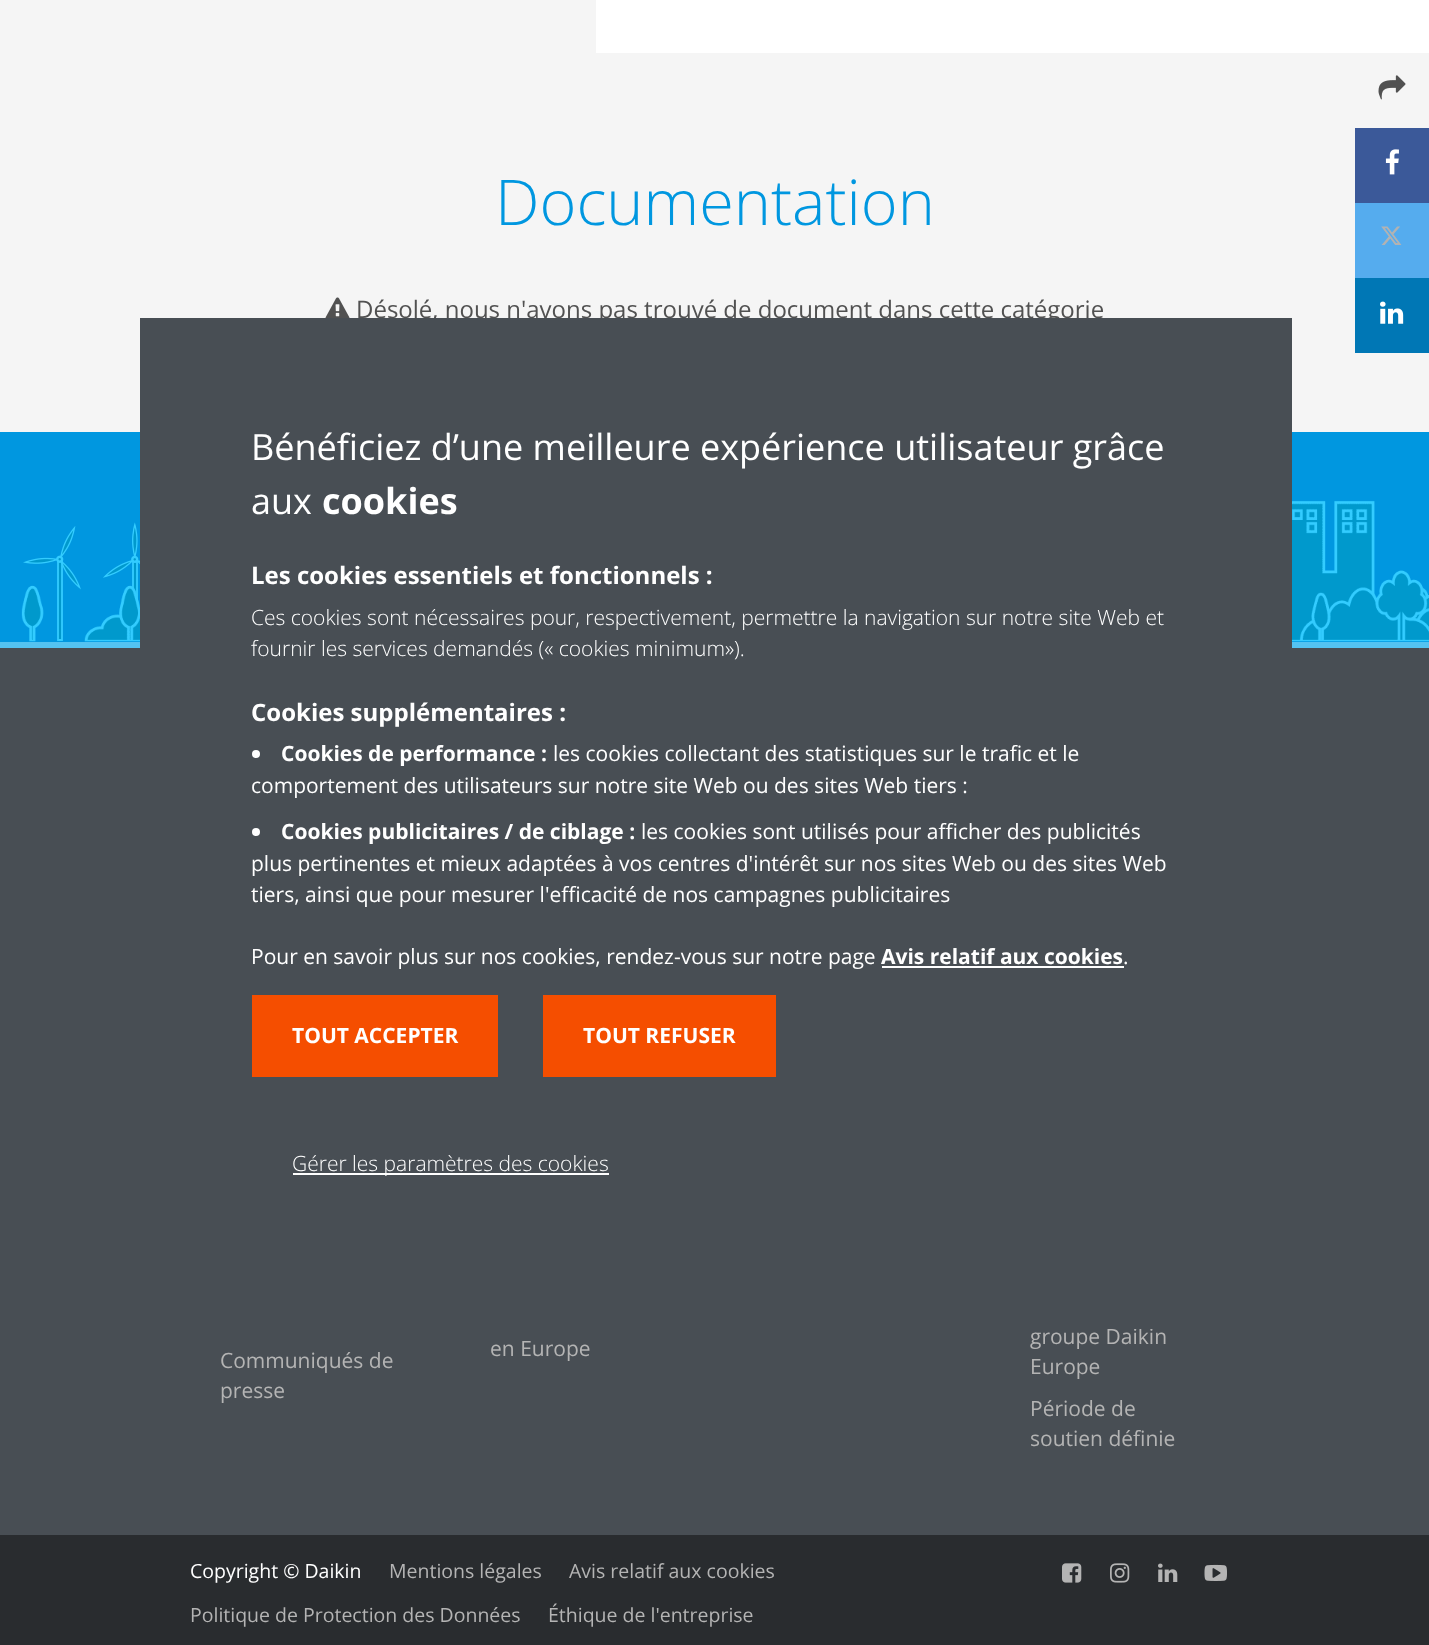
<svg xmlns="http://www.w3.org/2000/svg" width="1429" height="1645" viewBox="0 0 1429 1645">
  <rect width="100%" height="100%" fill="rgb(72,78,84)"/>
  <rect x="0" y="0" width="596" height="53" fill="rgb(245,245,245)"/>
  <rect x="596" y="0" width="833" height="53" fill="rgb(255,255,255)"/>
  <rect x="0" y="53" width="1429" height="379" fill="rgb(245,245,245)"/>
  <text x="495" y="225" font-family="Open Sans" font-size="63" font-weight="300" fill="rgb(0,151,224)">Documentation</text>
  <image x="325" y="297" width="25" height="21" href="pic1.png"/>
  <text x="356" y="318" font-family="Open Sans" font-size="24" fill="rgb(81,81,81)">Désolé, nous n'avons pas trouvé de document dans cette catégorie</text>
  <image x="1378" y="75" width="28" height="25" href="pic2.png"/>
  <rect x="1355" y="128" width="74" height="75" fill="rgb(59,89,153)"/>
  <image x="1385" y="149" width="14" height="26" href="pic3.png"/>
  <rect x="1355" y="203" width="74" height="75" fill="rgb(85,172,238)"/>
  <image x="1381" y="226" width="21" height="19" href="pic4.png"/>
  <rect x="1355" y="278" width="74" height="75" fill="rgb(0,119,181)"/>
  <image x="1380" y="301" width="24" height="23" href="pic5.png"/>
  <rect x="0" y="432" width="1429" height="210" fill="rgb(0,151,224)"/>
  <rect x="58" y="561" width="4" height="79" fill="rgb(0,153,204)"/>
  <path d="M58 561.5H62V640H58Z" fill="none" stroke="rgb(51,204,255)" stroke-width="1.8"/>
  <image x="23" y="526" width="58" height="64" href="pic7.png"/>
  <rect x="133" y="561" width="4" height="35" fill="rgb(0,153,204)"/>
  <path d="M133 561.5H137V640H133Z" fill="none" stroke="rgb(51,204,255)" stroke-width="1.8"/>
  <image x="103" y="522" width="37" height="56" href="pic8.png"/>
  <image x="21" y="500" width="1408" height="142" href="pic6.png"/>
  <rect x="0" y="642" width="1429" height="6" fill="rgb(84,195,241)"/>
  <g font-family="Open Sans" font-size="21" fill="rgb(180,180,180)">
    <text>
      <tspan x="220" y="1368">Communiqués de</tspan>
      <tspan x="220" y="1398">presse</tspan>
    </text>
    <text x="490" y="1356">en Europe</text>
    <text>
      <tspan x="1030" y="1344">groupe Daikin</tspan>
      <tspan x="1030" y="1374">Europe</tspan>
    </text>
    <text>
      <tspan x="1030" y="1416">Période de</tspan>
      <tspan x="1030" y="1446">soutien définie</tspan>
    </text>
  </g>
  <rect x="0" y="1535" width="1429" height="110" fill="rgb(41,44,47)"/>
  <text x="190" y="1578" font-family="Open Sans" font-size="19.5" fill="rgb(255,255,255)">Copyright © Daikin</text>
  <g font-family="Open Sans" font-size="19.5" fill="rgb(180,180,180)">
    <text x="389" y="1578">Mentions légales</text>
    <text x="569" y="1578">Avis relatif aux cookies</text>
    <text x="190" y="1622">Politique de Protection des Données</text>
    <text x="548" y="1622">Éthique de l'entreprise</text>
  </g>
  <image x="1062" y="1563" width="20" height="20" href="pic9.png"/>
  <image x="1110" y="1563" width="20" height="20" href="pic10.png"/>
  <image x="1158" y="1563" width="20" height="19" href="pic11.png"/>
  <image x="1204" y="1564" width="23" height="17" href="pic12.png"/>
  <rect x="140" y="318" width="1152" height="1011" fill="rgb(72,78,84)"/>
  <g font-family="Open Sans" font-size="36" fill="rgb(255,255,255)">
    <text>
      <tspan x="251" y="460">Bénéficiez d’une meilleure expérience utilisateur grâce</tspan>
      <tspan x="251" y="514">aux</tspan>
    </text>
  </g>
  <text x="322" y="514" font-family="Open Sans" font-size="36" font-weight="bold" fill="rgb(255,255,255)">cookies</text>
  <text x="251" y="584" font-family="Open Sans" font-size="24" font-weight="bold" fill="rgb(255,255,255)">Les cookies essentiels et fonctionnels :</text>
  <g font-family="Open Sans" font-size="21" font-weight="300" fill="rgb(255,255,255)">
    <text>
      <tspan x="251" y="625">Ces cookies sont nécessaires pour, respectivement, permettre la navigation sur notre site Web et</tspan>
      <tspan x="251" y="656">fournir les services demandés (« cookies minimum»).</tspan>
    </text>
  </g>
  <text x="251" y="721" font-family="Open Sans" font-size="24" font-weight="bold" fill="rgb(255,255,255)">Cookies supplémentaires :</text>
  <circle cx="256" cy="754" r="4" fill="rgb(255,255,255)"/>
  <text x="281" y="761" font-family="Open Sans" font-size="21" font-weight="bold" fill="rgb(255,255,255)">Cookies de performance :</text>
  <g font-family="Open Sans" font-size="21" fill="rgb(255,255,255)">
    <text x="553" y="761">les cookies collectant des statistiques sur le trafic et le</text>
    <text x="251" y="793">comportement des utilisateurs sur notre site Web ou des sites Web tiers :</text>
  </g>
  <circle cx="256" cy="832" r="4" fill="rgb(255,255,255)"/>
  <text x="281" y="839" font-family="Open Sans" font-size="21" font-weight="bold" fill="rgb(255,255,255)">Cookies publicitaires / de ciblage :</text>
  <g font-family="Open Sans" font-size="21" fill="rgb(255,255,255)">
    <text x="641" y="839">les cookies sont utilisés pour afficher des publicités</text>
    <text>
      <tspan x="251" y="871">plus pertinentes et mieux adaptées à vos centres d'intérêt sur nos sites Web ou des sites Web</tspan>
      <tspan x="251" y="902">tiers, ainsi que pour mesurer l'efficacité de nos campagnes publicitaires</tspan>
    </text>
    <text x="251" y="964">Pour en savoir plus sur nos cookies, rendez-vous sur notre page</text>
  </g>
  <text x="881" y="964" font-family="Open Sans" font-size="21" font-weight="bold" fill="rgb(255,255,255)">Avis relatif aux cookies</text>
  <rect x="882" y="966" width="242" height="2" fill="rgb(255,255,255)"/>
  <text x="1123" y="964" font-family="Open Sans" font-size="21" fill="rgb(255,255,255)">.</text>
  <rect x="252" y="995" width="246" height="82" fill="rgb(245,78,0)"/>
  <text x="292" y="1043" font-family="Open Sans" font-size="21" font-weight="bold" fill="rgb(255,255,255)">TOUT ACCEPTER</text>
  <rect x="543" y="995" width="233" height="82" fill="rgb(245,78,0)"/>
  <text x="583" y="1043" font-family="Open Sans" font-size="21" font-weight="bold" fill="rgb(255,255,255)">TOUT REFUSER</text>
  <rect x="293" y="1173" width="316" height="2" fill="rgb(255,255,255)"/>
  <text x="292" y="1171" font-family="Open Sans" font-size="21" font-weight="300" fill="rgb(255,255,255)">Gérer les paramètres des cookies</text>
</svg>
